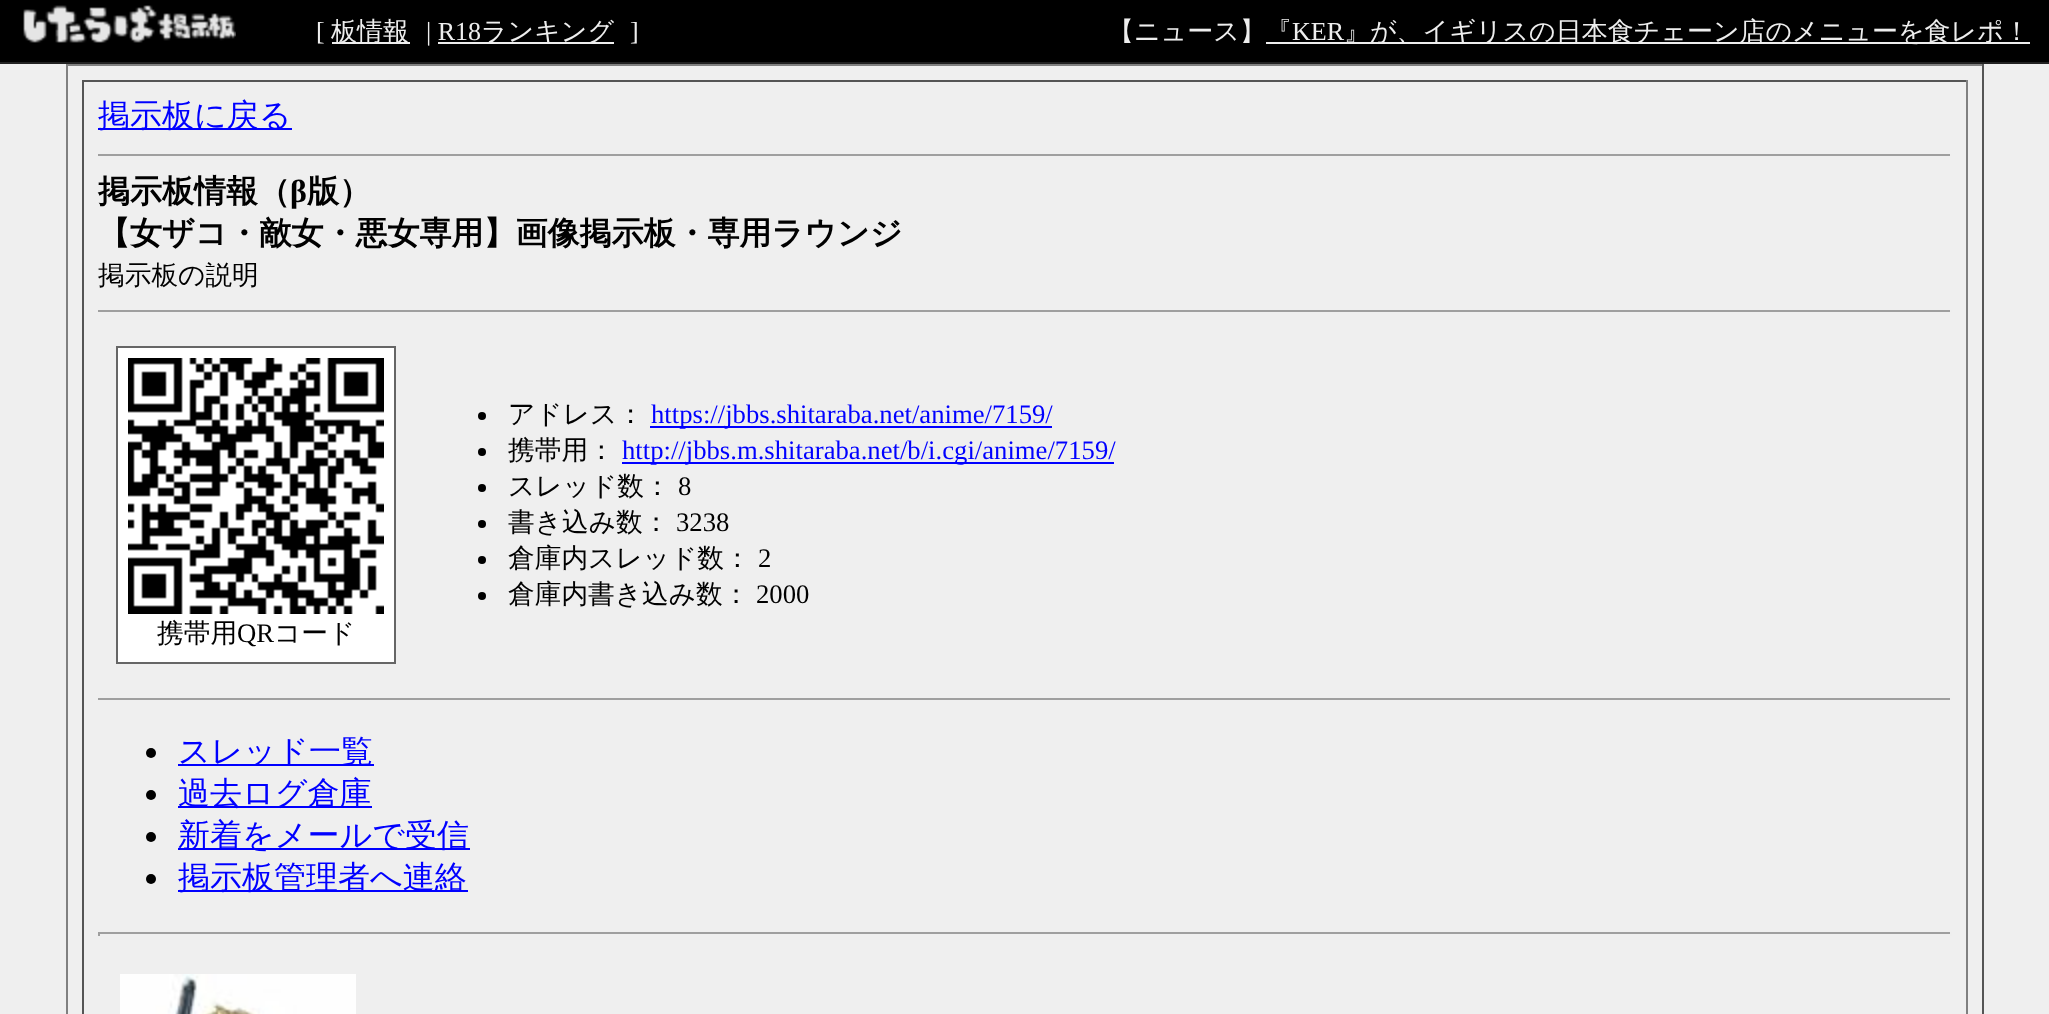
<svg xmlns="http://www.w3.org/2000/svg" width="2049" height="1014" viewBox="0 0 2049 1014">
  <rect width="100%" height="100%" fill="rgb(239,239,239)"/>
  <rect x="0" y="0" width="2049" height="62" fill="rgb(0,0,0)"/>
  <rect x="0" y="62" width="2049" height="2" fill="rgb(34,34,34)"/>
  <image x="23" y="5" width="213" height="38" href="pic1.png"/>
  <text x="316" y="40" font-family="Liberation Serif" font-size="26" fill="rgb(238,238,238)">[</text>
  <rect x="332" y="42" width="78" height="2" fill="rgb(238,238,238)"/>
  <text x="331" y="40" font-family="WenQuanYi Zen Hei" font-size="26" font-weight="500" fill="rgb(238,238,238)">板情報</text>
  <text x="426" y="40" font-family="Liberation Serif" font-size="26" fill="rgb(238,238,238)">| R18</text>
  <rect x="438" y="42" width="176" height="2" fill="rgb(238,238,238)"/>
  <text x="481" y="40" font-family="WenQuanYi Zen Hei" font-size="26" font-weight="500" fill="rgb(238,238,238)">ランキング</text>
  <text x="630" y="40" font-family="Liberation Serif" font-size="26" fill="rgb(238,238,238)">]</text>
  <text x="1108" y="40" font-family="WenQuanYi Zen Hei" font-size="26" font-weight="500" fill="rgb(238,238,238)">【ニュース】『</text>
  <text x="1292" y="40" font-family="Liberation Serif" font-size="26" fill="rgb(238,238,238)">KER</text>
  <rect x="1266" y="42" width="764" height="2" fill="rgb(238,238,238)"/>
  <text x="1344" y="40" font-family="WenQuanYi Zen Hei" font-size="26" font-weight="500" fill="rgb(238,238,238)">』が、イギリスの日本食チェーン店のメニューを食レポ！</text>
  <rect x="66" y="64" width="1918" height="2" fill="rgb(128,128,128)"/>
  <rect x="1982" y="64" width="2" height="950" fill="rgb(85,85,85)"/>
  <rect x="66" y="64" width="2" height="950" fill="rgb(128,128,128)"/>
  <rect x="82" y="80" width="1886" height="2" fill="rgb(85,85,85)"/>
  <rect x="1966" y="80" width="2" height="934" fill="rgb(128,128,128)"/>
  <rect x="82" y="80" width="2" height="934" fill="rgb(85,85,85)"/>
  <rect x="98" y="128" width="194" height="2" fill="rgb(0,0,255)"/>
  <text x="98" y="126" font-family="WenQuanYi Zen Hei" font-size="32" font-weight="500" fill="rgb(0,0,255)">掲示板に戻る</text>
  <rect x="98" y="154" width="1854" height="2" fill="rgb(159,159,159)"/>
  <rect x="1950" y="154" width="2" height="2" fill="rgb(238,238,238)"/>
  <text x="98" y="202" font-family="WenQuanYi Zen Hei" font-size="32" font-weight="bold" fill="rgb(0,0,0)">掲示板情報（</text>
  <text x="290" y="202" font-family="Liberation Serif" font-size="32" font-weight="bold" fill="rgb(0,0,0)">β</text>
  <g font-family="WenQuanYi Zen Hei" font-size="32" font-weight="bold" fill="rgb(0,0,0)">
    <text x="307" y="202">版）</text>
    <text x="98" y="244">【女ザコ・敵女・悪女専用】画像掲示板・専用ラウンジ</text>
  </g>
  <text x="98" y="284" font-family="WenQuanYi Zen Hei" font-size="26.7" font-weight="500" fill="rgb(0,0,0)">掲示板の説明</text>
  <rect x="98" y="310" width="1854" height="2" fill="rgb(159,159,159)"/>
  <rect x="1950" y="310" width="2" height="2" fill="rgb(238,238,238)"/>
  <circle cx="482" cy="416" r="4" fill="rgb(0,0,0)"/>
  <text x="508" y="423" font-family="WenQuanYi Zen Hei" font-size="26.7" font-weight="500" fill="rgb(0,0,0)">アドレス：</text>
  <rect x="650" y="426" width="402" height="2" fill="rgb(0,0,255)"/>
  <text x="651" y="423" font-family="Liberation Serif" font-size="26.7" fill="rgb(0,0,255)">https://jbbs.shitaraba.net/anime/7159/</text>
  <circle cx="482" cy="452" r="4" fill="rgb(0,0,0)"/>
  <text x="508" y="459" font-family="WenQuanYi Zen Hei" font-size="26.7" font-weight="500" fill="rgb(0,0,0)">携帯用：</text>
  <rect x="622" y="462" width="492" height="2" fill="rgb(0,0,255)"/>
  <text x="622" y="459" font-family="Liberation Serif" font-size="26.7" fill="rgb(0,0,255)">http://jbbs.m.shitaraba.net/b/i.cgi/anime/7159/</text>
  <circle cx="482" cy="488" r="4" fill="rgb(0,0,0)"/>
  <text x="508" y="495" font-family="WenQuanYi Zen Hei" font-size="26.7" font-weight="500" fill="rgb(0,0,0)">スレッド数：</text>
  <text x="678" y="495" font-family="Liberation Serif" font-size="26.7" fill="rgb(0,0,0)">8</text>
  <circle cx="482" cy="524" r="4" fill="rgb(0,0,0)"/>
  <text x="508" y="531" font-family="WenQuanYi Zen Hei" font-size="26.7" font-weight="500" fill="rgb(0,0,0)">書き込み数：</text>
  <text x="676" y="531" font-family="Liberation Serif" font-size="26.7" fill="rgb(0,0,0)">3238</text>
  <circle cx="482" cy="560" r="4" fill="rgb(0,0,0)"/>
  <text x="508" y="567" font-family="WenQuanYi Zen Hei" font-size="26.7" font-weight="500" fill="rgb(0,0,0)">倉庫内スレッド数：</text>
  <text x="758" y="567" font-family="Liberation Serif" font-size="26.7" fill="rgb(0,0,0)">2</text>
  <circle cx="482" cy="596" r="4" fill="rgb(0,0,0)"/>
  <text x="508" y="603" font-family="WenQuanYi Zen Hei" font-size="26.7" font-weight="500" fill="rgb(0,0,0)">倉庫内書き込み数：</text>
  <text x="756" y="603" font-family="Liberation Serif" font-size="26.7" fill="rgb(0,0,0)">2000</text>
  <rect x="117" y="347" width="278" height="316" fill="rgb(255,255,255)" stroke="rgb(102,102,102)" stroke-width="2"/>
  <image x="128" y="358" width="256" height="256" href="pic2.png"/>
  <text x="157" y="642" font-family="WenQuanYi Zen Hei" font-size="26.7" font-weight="500" fill="rgb(0,0,0)">携帯用</text>
  <text x="237" y="642" font-family="Liberation Serif" font-size="26.7" fill="rgb(0,0,0)">QR</text>
  <text x="274" y="642" font-family="WenQuanYi Zen Hei" font-size="26.7" font-weight="500" fill="rgb(0,0,0)">コード</text>
  <rect x="98" y="698" width="1854" height="2" fill="rgb(159,159,159)"/>
  <rect x="1950" y="698" width="2" height="2" fill="rgb(238,238,238)"/>
  <circle cx="151" cy="753" r="5" fill="rgb(0,0,0)"/>
  <rect x="178" y="764" width="196" height="2" fill="rgb(0,0,255)"/>
  <text x="178" y="762" font-family="WenQuanYi Zen Hei" font-size="32" font-weight="500" fill="rgb(0,0,255)">スレッド一覧</text>
  <circle cx="151" cy="795" r="5" fill="rgb(0,0,0)"/>
  <rect x="178" y="806" width="194" height="2" fill="rgb(0,0,255)"/>
  <text x="178" y="804" font-family="WenQuanYi Zen Hei" font-size="32" font-weight="500" fill="rgb(0,0,255)">過去ログ倉庫</text>
  <circle cx="151" cy="837" r="5" fill="rgb(0,0,0)"/>
  <rect x="178" y="848" width="292" height="2" fill="rgb(0,0,255)"/>
  <text x="178" y="846" font-family="WenQuanYi Zen Hei" font-size="32" font-weight="500" fill="rgb(0,0,255)">新着をメールで受信</text>
  <circle cx="151" cy="879" r="5" fill="rgb(0,0,0)"/>
  <rect x="178" y="890" width="290" height="2" fill="rgb(0,0,255)"/>
  <text x="178" y="888" font-family="WenQuanYi Zen Hei" font-size="32" font-weight="500" fill="rgb(0,0,255)">掲示板管理者へ連絡</text>
  <rect x="98" y="932" width="1854" height="2" fill="rgb(159,159,159)"/>
  <rect x="1950" y="932" width="2" height="4" fill="rgb(238,238,238)"/>
  <rect x="98" y="932" width="2" height="4" fill="rgb(159,159,159)"/>
  <image x="120" y="974" width="236" height="40" href="pic3.png"/>
</svg>
